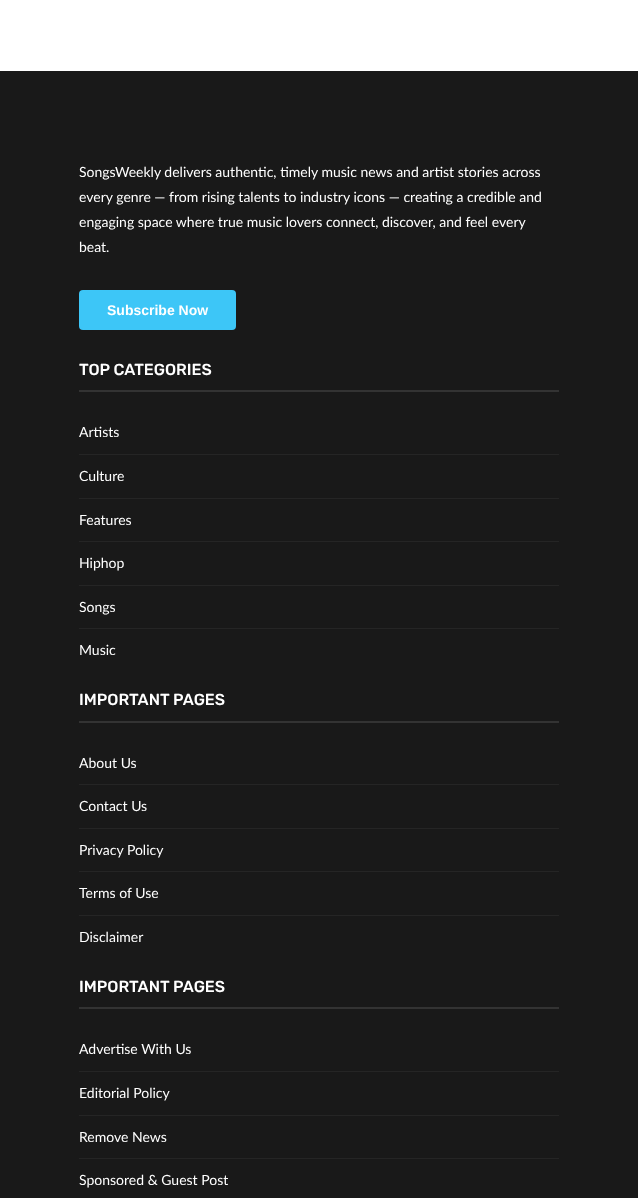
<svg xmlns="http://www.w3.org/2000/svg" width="638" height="1198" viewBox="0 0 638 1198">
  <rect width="100%" height="100%" fill="rgb(255,255,255)"/>
  <rect x="0" y="71" width="638" height="1127" fill="rgb(25,25,25)"/>
  <g font-family="Lato" font-size="14" fill="rgb(255,255,255)">
    <text>
      <tspan x="79" y="177">SongsWeekly delivers authentic, timely music news and artist stories across</tspan>
      <tspan x="79" y="202">every genre — from rising talents to industry icons — creating a credible and</tspan>
      <tspan x="79" y="227">engaging space where true music lovers connect, discover, and feel every</tspan>
      <tspan x="79" y="252">beat.</tspan>
    </text>
  </g>
  <rect x="79" y="290" width="157" height="40" rx="4" fill="rgb(61,198,247)"/>
  <text x="107" y="315" font-family="Liberation Sans" font-size="14" font-weight="bold" fill="rgb(255,255,255)">Subscribe Now</text>
  <rect x="79" y="390" width="480" height="2" fill="rgb(51,51,51)"/>
  <text x="79" y="375" font-family="Rubik" font-size="16" font-weight="500" fill="rgb(255,255,255)">TOP CATEGORIES</text>
  <rect x="79" y="454" width="480" height="1" fill="rgb(37,37,37)"/>
  <text x="79" y="437" font-family="Lato" font-size="14" fill="rgb(255,255,255)">Artists</text>
  <rect x="79" y="498" width="480" height="1" fill="rgb(37,37,37)"/>
  <text x="79" y="481" font-family="Lato" font-size="14" fill="rgb(255,255,255)">Culture</text>
  <rect x="79" y="541" width="480" height="1" fill="rgb(37,37,37)"/>
  <text x="79" y="525" font-family="Lato" font-size="14" fill="rgb(255,255,255)">Features</text>
  <rect x="79" y="585" width="480" height="1" fill="rgb(37,37,37)"/>
  <text x="79" y="568" font-family="Lato" font-size="14" fill="rgb(255,255,255)">Hiphop</text>
  <rect x="79" y="628" width="480" height="1" fill="rgb(37,37,37)"/>
  <g font-family="Lato" font-size="14" fill="rgb(255,255,255)">
    <text x="79" y="612">Songs</text>
    <text x="79" y="655">Music</text>
  </g>
  <rect x="79" y="721" width="480" height="2" fill="rgb(51,51,51)"/>
  <text x="79" y="705" font-family="Rubik" font-size="16" font-weight="500" fill="rgb(255,255,255)">IMPORTANT PAGES</text>
  <rect x="79" y="784" width="480" height="1" fill="rgb(37,37,37)"/>
  <text x="79" y="768" font-family="Lato" font-size="14" fill="rgb(255,255,255)">About Us</text>
  <rect x="79" y="828" width="480" height="1" fill="rgb(37,37,37)"/>
  <text x="79" y="811" font-family="Lato" font-size="14" fill="rgb(255,255,255)">Contact Us</text>
  <rect x="79" y="871" width="480" height="1" fill="rgb(37,37,37)"/>
  <text x="79" y="855" font-family="Lato" font-size="14" fill="rgb(255,255,255)">Privacy Policy</text>
  <rect x="79" y="915" width="480" height="1" fill="rgb(37,37,37)"/>
  <g font-family="Lato" font-size="14" fill="rgb(255,255,255)">
    <text x="79" y="898">Terms of Use</text>
    <text x="79" y="942">Disclaimer</text>
  </g>
  <rect x="79" y="1007" width="480" height="2" fill="rgb(51,51,51)"/>
  <text x="79" y="992" font-family="Rubik" font-size="16" font-weight="500" fill="rgb(255,255,255)">IMPORTANT PAGES</text>
  <rect x="79" y="1071" width="480" height="1" fill="rgb(37,37,37)"/>
  <text x="79" y="1054" font-family="Lato" font-size="14" fill="rgb(255,255,255)">Advertise With Us</text>
  <rect x="79" y="1115" width="480" height="1" fill="rgb(37,37,37)"/>
  <text x="79" y="1098" font-family="Lato" font-size="14" fill="rgb(255,255,255)">Editorial Policy</text>
  <rect x="79" y="1158" width="480" height="1" fill="rgb(37,37,37)"/>
  <g font-family="Lato" font-size="14" fill="rgb(255,255,255)">
    <text x="79" y="1142">Remove News</text>
    <text x="79" y="1185">Sponsored &amp; Guest Post</text>
  </g>
</svg>
